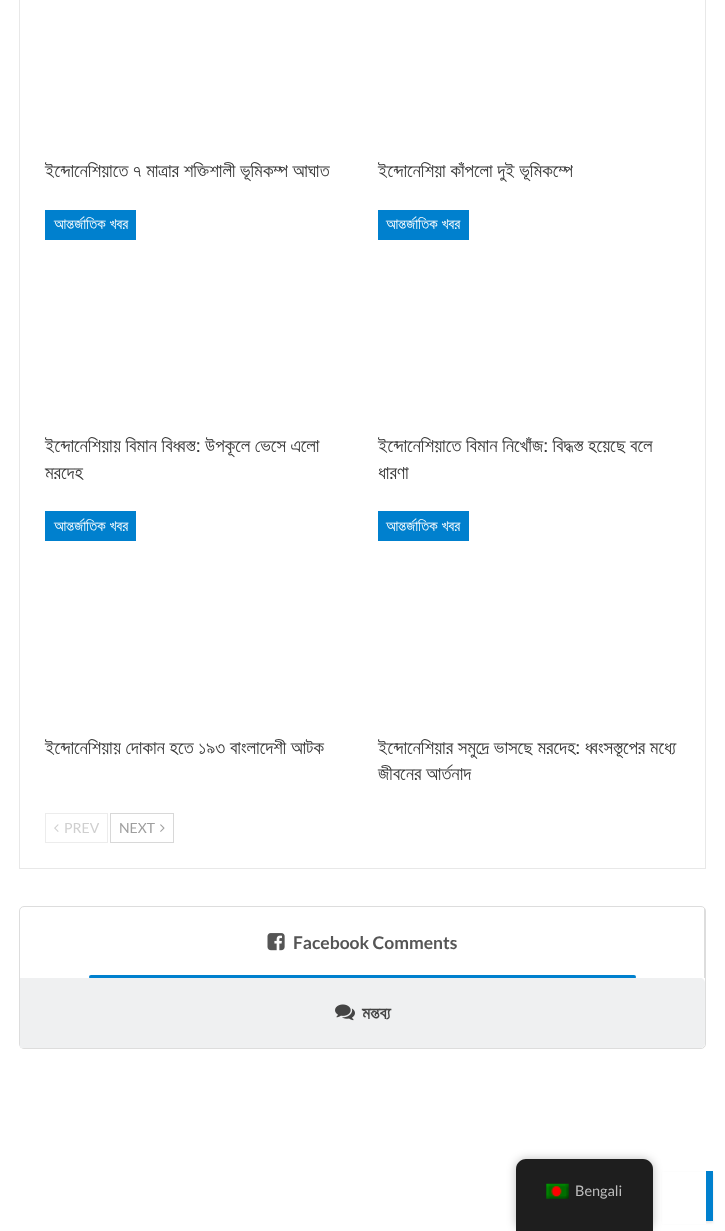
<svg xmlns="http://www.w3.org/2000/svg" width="725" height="1231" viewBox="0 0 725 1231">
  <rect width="100%" height="100%" fill="rgb(255,255,255)"/>
  <rect x="19.5" y="-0.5" width="686" height="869" fill="none" stroke="rgb(232,232,232)"/>
  <g font-family="FreeSans" font-size="18.75" fill="rgb(56,56,56)">
    <text x="45" y="177">ইন্দোনেশিয়াতে ৭ মাত্রার শক্তিশালী ভূমিকম্প আঘাত</text>
    <text x="378" y="177">ইন্দোনেশিয়া কাঁপলো দুই ভূমিকম্পে</text>
  </g>
  <rect x="45" y="210" width="91" height="30" fill="rgb(0,128,206)"/>
  <text x="54" y="229" font-family="FreeSans" font-size="15" fill="rgb(255,255,255)">আন্তর্জাতিক খবর</text>
  <g font-family="FreeSans" font-size="18.75" fill="rgb(56,56,56)">
    <text>
      <tspan x="45" y="452">ইন্দোনেশিয়ায় বিমান বিধ্বস্ত: উপকূলে ভেসে এলো</tspan>
      <tspan x="45" y="479">মরদেহ</tspan>
    </text>
  </g>
  <rect x="378" y="210" width="91" height="30" fill="rgb(0,128,206)"/>
  <text x="386" y="229" font-family="FreeSans" font-size="15" fill="rgb(255,255,255)">আন্তর্জাতিক খবর</text>
  <g font-family="FreeSans" font-size="18.75" fill="rgb(56,56,56)">
    <text>
      <tspan x="378" y="452">ইন্দোনেশিয়াতে বিমান নিখোঁজ: বিদ্ধস্ত হয়েছে বলে</tspan>
      <tspan x="378" y="479">ধারণা</tspan>
    </text>
  </g>
  <rect x="45" y="511" width="91" height="30" fill="rgb(0,128,206)"/>
  <text x="54" y="531" font-family="FreeSans" font-size="15" fill="rgb(255,255,255)">আন্তর্জাতিক খবর</text>
  <text x="45" y="754" font-family="FreeSans" font-size="18.75" fill="rgb(56,56,56)">ইন্দোনেশিয়ায় দোকান হতে ১৯৩ বাংলাদেশী আটক</text>
  <rect x="378" y="511" width="91" height="30" fill="rgb(0,128,206)"/>
  <text x="386" y="531" font-family="FreeSans" font-size="15" fill="rgb(255,255,255)">আন্তর্জাতিক খবর</text>
  <g font-family="FreeSans" font-size="18.75" fill="rgb(56,56,56)">
    <text>
      <tspan x="378" y="754">ইন্দোনেশিয়ার সমুদ্রে ভাসছে মরদেহ: ধ্বংসস্তূপের মধ্যে</tspan>
      <tspan x="378" y="780">জীবনের আর্তনাদ</tspan>
    </text>
  </g>
  <rect x="45.5" y="813.5" width="62" height="29" fill="none" stroke="rgb(236,236,236)"/>
  <image x="54" y="824" width="5" height="8" href="pic1.png"/>
  <text x="64" y="833" font-family="Lato" font-size="14" fill="rgb(207,207,207)">PREV</text>
  <rect x="110.5" y="813.5" width="63" height="29" fill="none" stroke="rgb(216,216,216)"/>
  <text x="119" y="833" font-family="Lato" font-size="14" fill="rgb(158,158,158)">NEXT</text>
  <image x="160" y="824" width="5" height="8" href="pic2.png"/>
  <rect x="19.5" y="906.5" width="686" height="142" rx="4.5" fill="none" stroke="rgb(221,221,221)"/>
  <path d="M25 908H705V978H25C22 978 20 976 20 973V913C20 910 22 908 25 908Z" fill="rgb(255,255,255)"/>
  <image x="267" y="933" width="18" height="18" href="pic3.png"/>
  <text x="293" y="949" font-family="Lato" font-size="17.5" font-weight="bold" fill="rgb(85,85,85)">Facebook Comments</text>
  <rect x="704" y="908" width="1" height="70" fill="rgb(221,221,221)"/>
  <rect x="89" y="975" width="547" height="4" rx="2" fill="rgb(0,128,206)"/>
  <path d="M20 978H700C703 978 705 980 705 983V1043C705 1046 703 1048 700 1048H20Z" fill="rgb(239,240,241)"/>
  <image x="335" y="1004" width="20" height="17" href="pic4.png"/>
  <text x="362" y="1019" font-family="FreeSans" font-size="17.5" font-weight="bold" fill="rgb(68,68,68)">মন্তব্য</text>
  <rect x="663" y="1173" width="50" height="50" fill="rgba(0,0,0,0.09)" filter="blur(1px)"/>
  <rect x="662" y="1172" width="44" height="52" fill="rgb(255,255,255)"/>
  <rect x="516" y="1159" width="137" height="72" rx="10" fill="rgba(0,0,0,0.25)" filter="blur(5px)"/>
  <path d="M526 1159H643C648.5 1159 653 1163.5 653 1169V1231H516V1169C516 1163.5 520.5 1159 526 1159Z" fill="rgb(30,30,30)"/>
  <image x="546" y="1183" width="23" height="16" href="pic5.png"/>
  <text x="575" y="1196" font-family="Lato" font-size="14.5" fill="rgb(189,189,189)">Bengali</text>
  <rect x="706" y="1171" width="7" height="50" fill="rgb(0,128,206)"/>
</svg>
